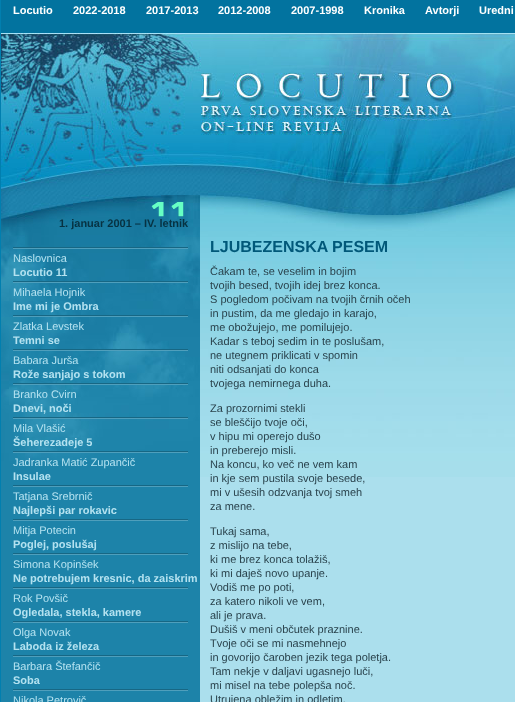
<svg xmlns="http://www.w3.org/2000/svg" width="515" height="702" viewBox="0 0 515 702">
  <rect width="100%" height="100%" fill="rgb(171,223,237)"/>
  <rect x="0" y="0" width="1" height="702" fill="rgb(1,127,175)"/>
  <rect x="1" y="0" width="514" height="33" fill="rgb(2,115,159)"/>
  <g font-family="Liberation Sans" font-size="11" font-weight="bold" fill="rgb(255,255,255)">
    <text x="13" y="14">Locutio</text>
    <text x="73" y="14">2022-2018</text>
    <text x="146" y="14">2017-2013</text>
    <text x="218" y="14">2012-2008</text>
    <text x="291" y="14">2007-1998</text>
    <text x="364" y="14">Kronika</text>
    <text x="425" y="14">Avtorji</text>
    <text x="479" y="14">Uredni</text>
  </g>
  <image x="1" y="33" width="469" height="102" href="pic1.png"/>
  <image x="470" y="33" width="45" height="102" href="pic2.png"/>
  <image x="1" y="135" width="199" height="60" href="pic3.png"/>
  <image x="200" y="135" width="270" height="102" href="pic4.png"/>
  <image x="470" y="135" width="45" height="102" href="pic5.png"/>
  <image x="1" y="195" width="199" height="42" href="pic6.png"/>
  <image x="151" y="202" width="13" height="15" href="pic7.png"/>
  <image x="171" y="202" width="13" height="15" href="pic8.png"/>
  <text x="59" y="227" font-family="Liberation Sans" font-size="11" font-weight="bold" fill="rgb(7,50,66)">1. januar 2001 – IV. letnik</text>
  <rect x="1" y="461" width="199" height="241" fill="rgb(29,131,169)"/>
  <image x="1" y="237" width="199" height="224" href="pic9.png"/>
  <image x="13" y="247" width="175" height="2" href="pic10.png"/>
  <text x="13" y="262" font-family="Liberation Sans" font-size="11" fill="rgb(180,226,240)">Naslovnica</text>
  <text x="13" y="276" font-family="Liberation Sans" font-size="11" font-weight="bold" fill="rgb(180,226,240)">Locutio 11</text>
  <image x="13" y="281" width="175" height="2" href="pic10.png"/>
  <text x="13" y="296" font-family="Liberation Sans" font-size="11" fill="rgb(180,226,240)">Mihaela Hojnik</text>
  <text x="13" y="310" font-family="Liberation Sans" font-size="11" font-weight="bold" fill="rgb(180,226,240)">Ime mi je Ombra</text>
  <image x="13" y="315" width="175" height="2" href="pic10.png"/>
  <text x="13" y="330" font-family="Liberation Sans" font-size="11" fill="rgb(180,226,240)">Zlatka Levstek</text>
  <text x="13" y="344" font-family="Liberation Sans" font-size="11" font-weight="bold" fill="rgb(180,226,240)">Temni se</text>
  <image x="13" y="349" width="175" height="2" href="pic10.png"/>
  <text x="13" y="364" font-family="Liberation Sans" font-size="11" fill="rgb(180,226,240)">Babara Jurša</text>
  <text x="13" y="378" font-family="Liberation Sans" font-size="11" font-weight="bold" fill="rgb(180,226,240)">Rože sanjajo s tokom</text>
  <image x="13" y="383" width="175" height="2" href="pic10.png"/>
  <text x="13" y="398" font-family="Liberation Sans" font-size="11" fill="rgb(180,226,240)">Branko Cvirn</text>
  <text x="13" y="412" font-family="Liberation Sans" font-size="11" font-weight="bold" fill="rgb(180,226,240)">Dnevi, noči</text>
  <image x="13" y="417" width="175" height="2" href="pic10.png"/>
  <text x="13" y="432" font-family="Liberation Sans" font-size="11" fill="rgb(180,226,240)">Mila Vlašić</text>
  <text x="13" y="446" font-family="Liberation Sans" font-size="11" font-weight="bold" fill="rgb(180,226,240)">Šeherezadeje 5</text>
  <image x="13" y="451" width="175" height="2" href="pic10.png"/>
  <text x="13" y="466" font-family="Liberation Sans" font-size="11" fill="rgb(180,226,240)">Jadranka Matić Zupančič</text>
  <text x="13" y="480" font-family="Liberation Sans" font-size="11" font-weight="bold" fill="rgb(180,226,240)">Insulae</text>
  <image x="13" y="485" width="175" height="2" href="pic10.png"/>
  <text x="13" y="500" font-family="Liberation Sans" font-size="11" fill="rgb(180,226,240)">Tatjana Srebrnič</text>
  <text x="13" y="514" font-family="Liberation Sans" font-size="11" font-weight="bold" fill="rgb(180,226,240)">Najlepši par rokavic</text>
  <image x="13" y="519" width="175" height="2" href="pic10.png"/>
  <text x="13" y="534" font-family="Liberation Sans" font-size="11" fill="rgb(180,226,240)">Mitja Potecin</text>
  <text x="13" y="548" font-family="Liberation Sans" font-size="11" font-weight="bold" fill="rgb(180,226,240)">Poglej, poslušaj</text>
  <image x="13" y="553" width="175" height="2" href="pic10.png"/>
  <text x="13" y="568" font-family="Liberation Sans" font-size="11" fill="rgb(180,226,240)">Simona Kopinšek</text>
  <text x="13" y="582" font-family="Liberation Sans" font-size="11" font-weight="bold" fill="rgb(180,226,240)">Ne potrebujem kresnic, da zaiskrim</text>
  <image x="13" y="587" width="175" height="2" href="pic10.png"/>
  <text x="13" y="602" font-family="Liberation Sans" font-size="11" fill="rgb(180,226,240)">Rok Povšič</text>
  <text x="13" y="616" font-family="Liberation Sans" font-size="11" font-weight="bold" fill="rgb(180,226,240)">Ogledala, stekla, kamere</text>
  <image x="13" y="621" width="175" height="2" href="pic10.png"/>
  <text x="13" y="636" font-family="Liberation Sans" font-size="11" fill="rgb(180,226,240)">Olga Novak</text>
  <text x="13" y="650" font-family="Liberation Sans" font-size="11" font-weight="bold" fill="rgb(180,226,240)">Laboda iz železa</text>
  <image x="13" y="655" width="175" height="2" href="pic10.png"/>
  <text x="13" y="670" font-family="Liberation Sans" font-size="11" fill="rgb(180,226,240)">Barbara Štefančič</text>
  <text x="13" y="684" font-family="Liberation Sans" font-size="11" font-weight="bold" fill="rgb(180,226,240)">Soba</text>
  <image x="13" y="689" width="175" height="2" href="pic10.png"/>
  <text x="13" y="704" font-family="Liberation Sans" font-size="11" fill="rgb(180,226,240)">Nikola Petrovič</text>
  <image x="200" y="237" width="315" height="240" href="pic11.png"/>
  <text x="210" y="252" font-family="Liberation Sans" font-size="16" font-weight="bold" fill="rgb(1,88,121)">LJUBEZENSKA PESEM</text>
  <g font-family="Liberation Sans" font-size="11" fill="rgb(42,67,77)">
    <text>
      <tspan x="210" y="275">Čakam te, se veselim in bojim</tspan>
      <tspan x="210" y="289">tvojih besed, tvojih idej brez konca.</tspan>
      <tspan x="210" y="303">S pogledom počivam na tvojih črnih očeh</tspan>
      <tspan x="210" y="317">in pustim, da me gledajo in karajo,</tspan>
      <tspan x="210" y="331">me obožujejo, me pomilujejo.</tspan>
      <tspan x="210" y="345">Kadar s teboj sedim in te poslušam,</tspan>
      <tspan x="210" y="359">ne utegnem priklicati v spomin</tspan>
      <tspan x="210" y="373">niti odsanjati do konca</tspan>
      <tspan x="210" y="387">tvojega nemirnega duha.</tspan>
    </text>
    <text>
      <tspan x="210" y="412">Za prozornimi stekli</tspan>
      <tspan x="210" y="426">se bleščijo tvoje oči,</tspan>
      <tspan x="210" y="440">v hipu mi operejo dušo</tspan>
      <tspan x="210" y="454">in preberejo misli.</tspan>
      <tspan x="210" y="468">Na koncu, ko več ne vem kam</tspan>
      <tspan x="210" y="482">in kje sem pustila svoje besede,</tspan>
      <tspan x="210" y="496">mi v ušesih odzvanja tvoj smeh</tspan>
      <tspan x="210" y="510">za mene.</tspan>
    </text>
    <text>
      <tspan x="210" y="535">Tukaj sama,</tspan>
      <tspan x="210" y="549">z mislijo na tebe,</tspan>
      <tspan x="210" y="563">ki me brez konca tolažiš,</tspan>
      <tspan x="210" y="577">ki mi daješ novo upanje.</tspan>
      <tspan x="210" y="591">Vodiš me po poti,</tspan>
      <tspan x="210" y="605">za katero nikoli ve vem,</tspan>
      <tspan x="210" y="619">ali je prava.</tspan>
      <tspan x="210" y="633">Dušiš v meni občutek praznine.</tspan>
      <tspan x="210" y="647">Tvoje oči se mi nasmehnejo</tspan>
      <tspan x="210" y="661">in govorijo čaroben jezik tega poletja.</tspan>
      <tspan x="210" y="675">Tam nekje v daljavi ugasnejo luči,</tspan>
      <tspan x="210" y="689">mi misel na tebe polepša noč.</tspan>
      <tspan x="210" y="703">Utrujena obležim in odletim.</tspan>
    </text>
  </g>
</svg>
